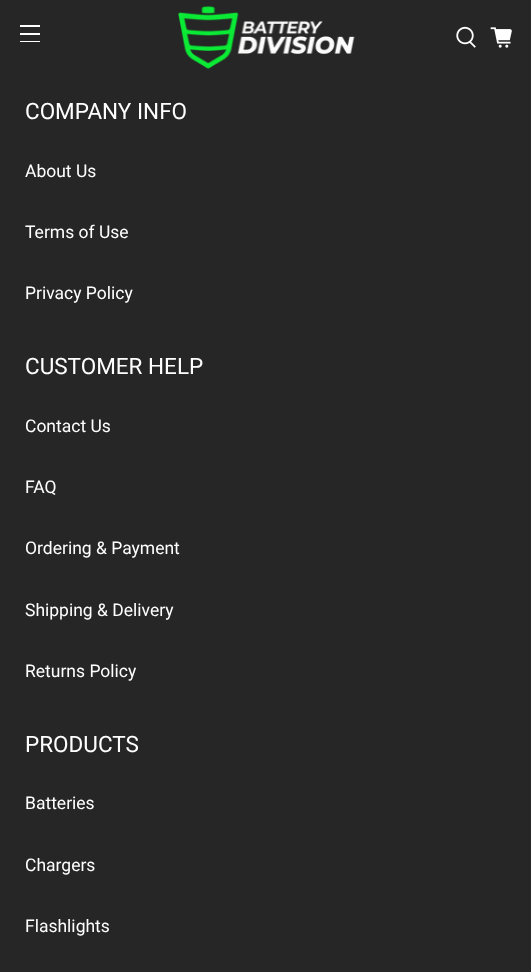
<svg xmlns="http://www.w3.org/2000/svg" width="531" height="972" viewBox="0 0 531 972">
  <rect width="100%" height="100%" fill="rgb(38,38,38)"/>
  <rect x="20" y="25" width="20" height="2" fill="rgb(255,255,255)"/>
  <rect x="20" y="33" width="20" height="2" fill="rgb(255,255,255)"/>
  <rect x="20" y="41" width="20" height="1" fill="rgb(255,255,255)"/>
  <image x="178" y="6" width="177" height="63" href="pic1.png"/>
  <image x="456" y="26" width="20" height="22" href="pic2.png"/>
  <image x="490" y="27" width="22" height="21" href="pic3.png"/>
  <text x="25" y="119" font-family="Roboto" font-size="22.5" fill="rgb(255,255,255)">COMPANY INFO</text>
  <g font-family="Roboto" font-size="17.5" fill="rgb(255,255,255)">
    <text x="25" y="177">About Us</text>
    <text x="25" y="238">Terms of Use</text>
    <text x="25" y="299">Privacy Policy</text>
  </g>
  <text x="25" y="374" font-family="Roboto" font-size="22.5" fill="rgb(255,255,255)">CUSTOMER HELP</text>
  <g font-family="Roboto" font-size="17.5" fill="rgb(255,255,255)">
    <text x="25" y="432">Contact Us</text>
    <text x="25" y="493">FAQ</text>
    <text x="25" y="554">Ordering &amp; Payment</text>
    <text x="25" y="616">Shipping &amp; Delivery</text>
    <text x="25" y="677">Returns Policy</text>
  </g>
  <text x="25" y="752" font-family="Roboto" font-size="22.5" fill="rgb(255,255,255)">PRODUCTS</text>
  <g font-family="Roboto" font-size="17.5" fill="rgb(255,255,255)">
    <text x="25" y="809">Batteries</text>
    <text x="25" y="871">Chargers</text>
    <text x="25" y="932">Flashlights</text>
  </g>
</svg>
